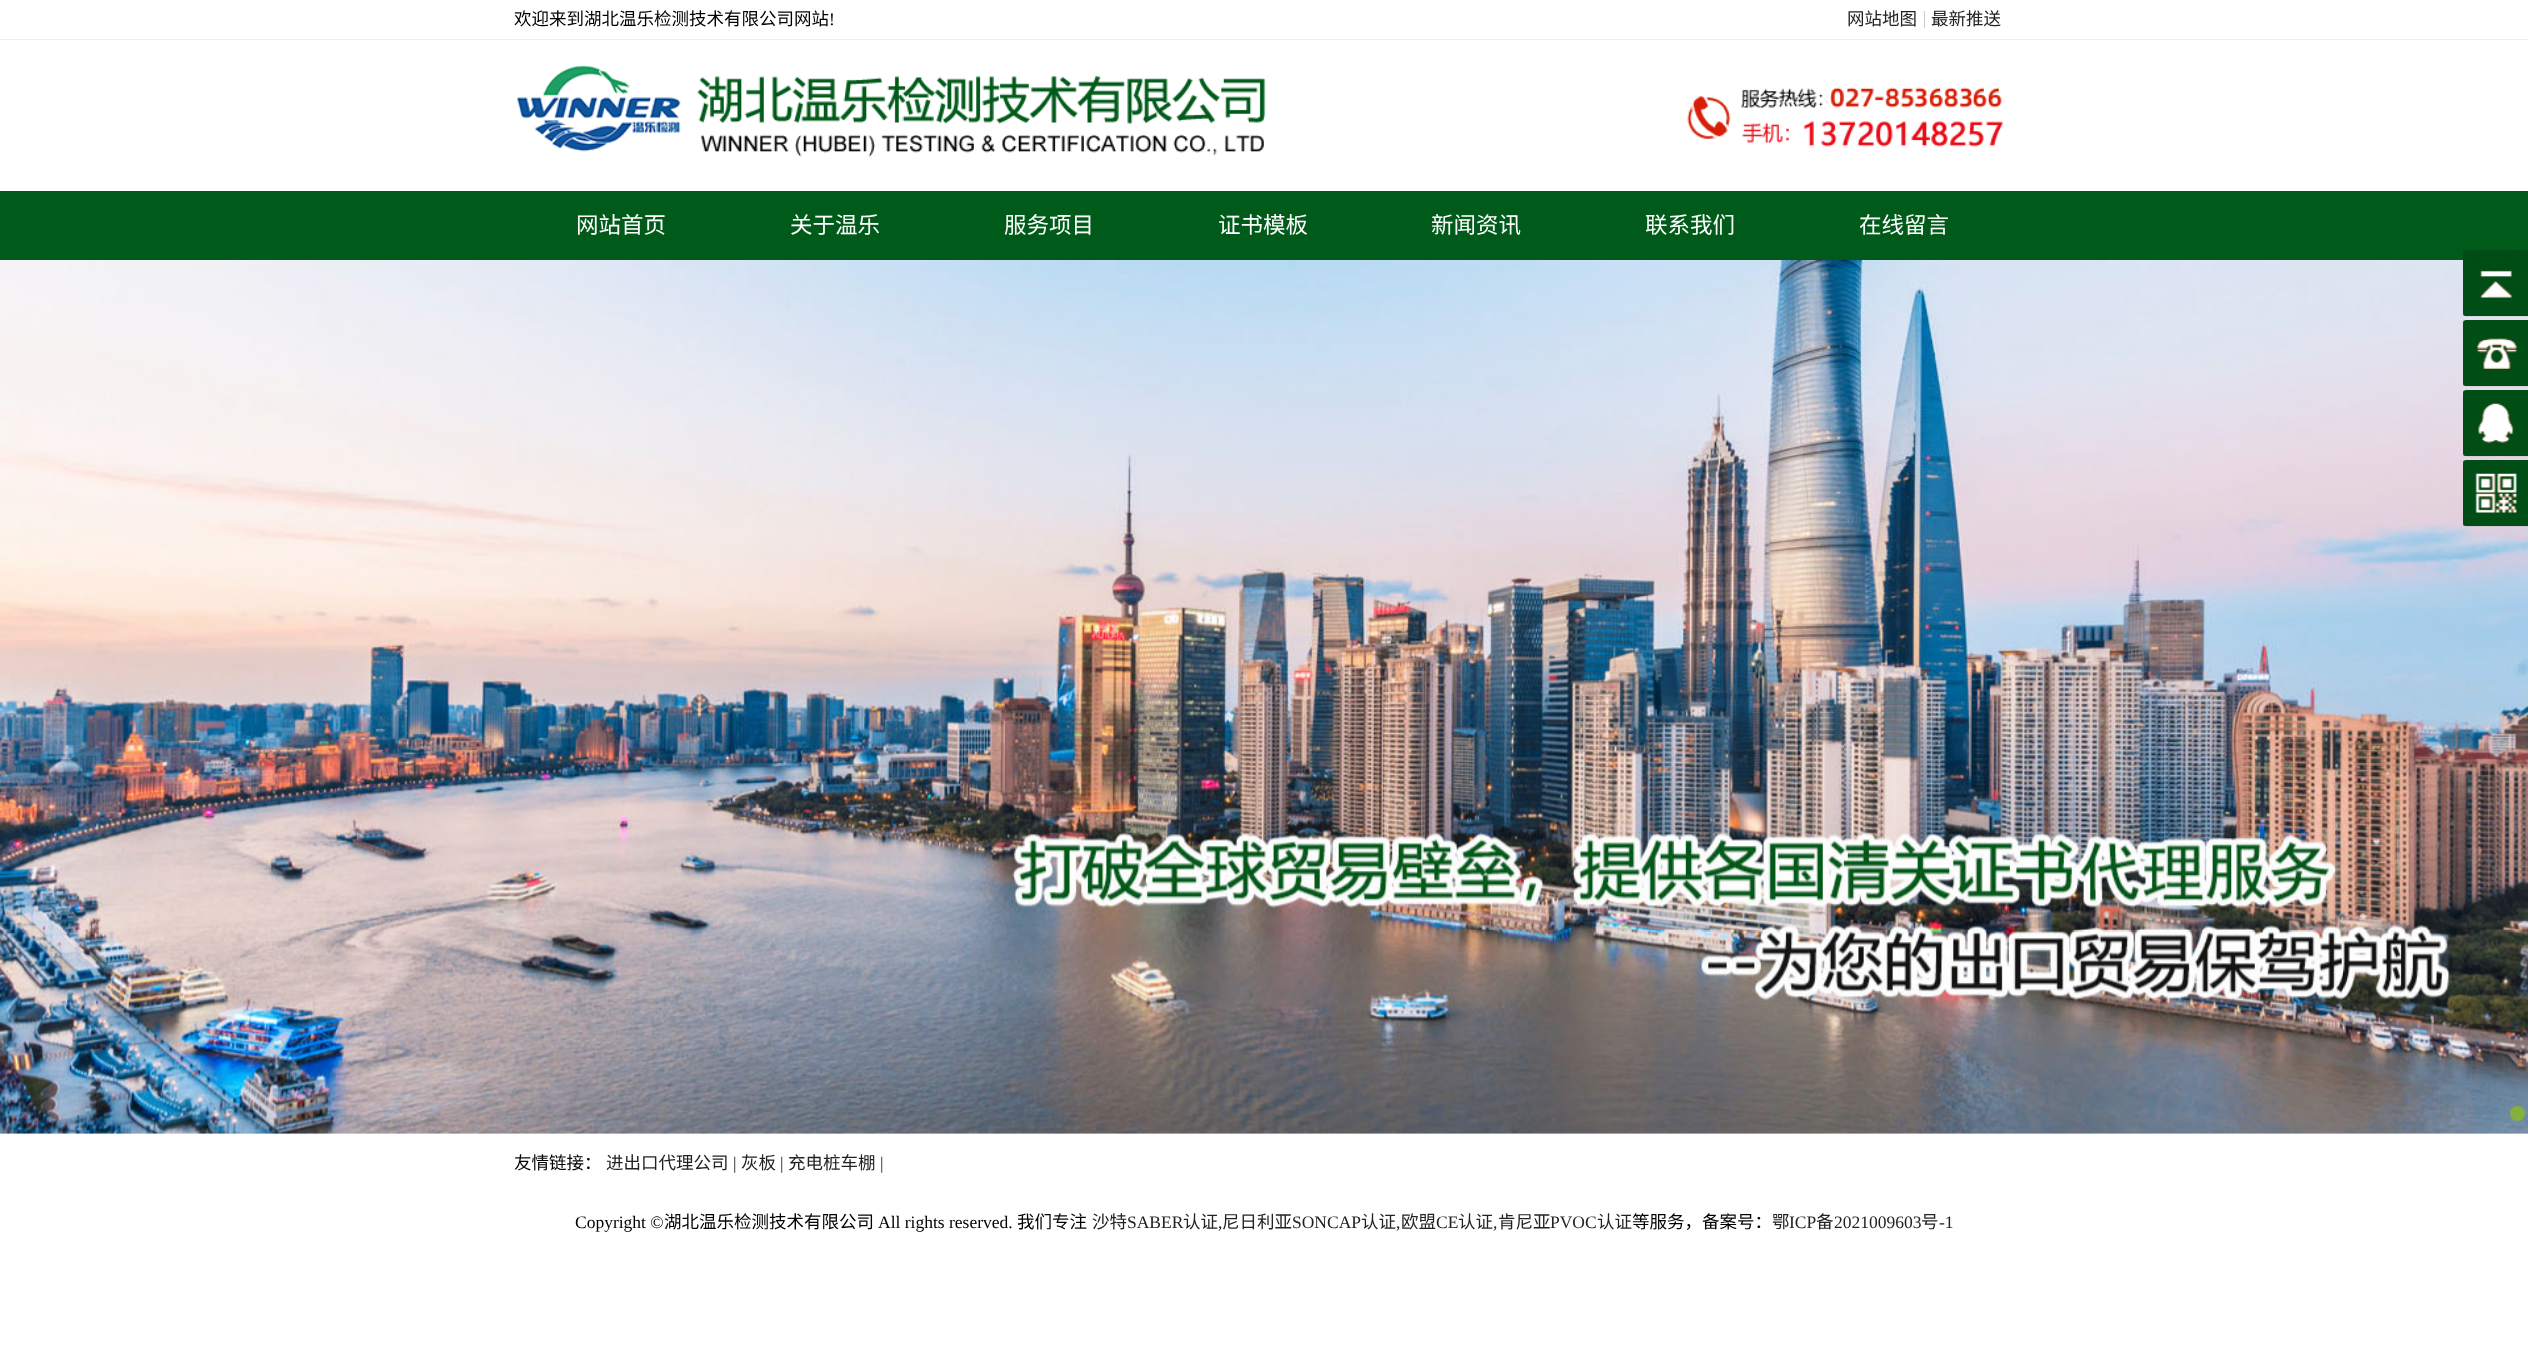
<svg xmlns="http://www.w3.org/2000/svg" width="2528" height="1355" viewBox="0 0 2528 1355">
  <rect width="100%" height="100%" fill="rgb(255,255,255)"/>
  <rect x="0" y="39" width="2528" height="1" fill="rgb(236,236,236)"/>
  <text x="514" y="25" font-family="Noto Sans CJK SC" font-size="17.5" fill="rgb(0,0,0)">欢迎来到湖北温乐检测技术有限公司网站</text>
  <text x="829" y="25" font-family="Liberation Serif" font-size="17.5" fill="rgb(0,0,0)">!</text>
  <text x="1847" y="25" font-family="Noto Sans CJK SC" font-size="17.5" fill="rgb(34,34,34)">网站地图</text>
  <rect x="1924" y="11" width="1" height="17" fill="rgb(204,204,204)"/>
  <text x="1931" y="25" font-family="Noto Sans CJK SC" font-size="17.5" fill="rgb(34,34,34)">最新推送</text>
  <image x="517" y="65" width="749" height="92" href="pic1.png"/>
  <image x="1687" y="87" width="316" height="60" href="pic2.png"/>
  <rect x="0" y="191" width="2528" height="69" fill="rgb(0,90,25)"/>
  <g font-family="Noto Sans CJK SC" font-size="22.5" fill="rgb(255,255,255)">
    <text x="576" y="233">网站首页</text>
    <text x="790" y="233">关于温乐</text>
    <text x="1004" y="233">服务项目</text>
    <text x="1218" y="233">证书模板</text>
    <text x="1431" y="233">新闻资讯</text>
    <text x="1645" y="233">联系我们</text>
    <text x="1859" y="233">在线留言</text>
  </g>
  <image x="0" y="260" width="2528" height="874" href="pic7.png"/>
  <image x="2463" y="250" width="65" height="67" href="pic3.png"/>
  <image x="2463" y="320" width="65" height="67" href="pic4.png"/>
  <image x="2463" y="390" width="65" height="67" href="pic5.png"/>
  <image x="2463" y="460" width="65" height="67" href="pic6.png"/>
  <circle cx="2517.5" cy="1113.5" r="7.5" fill="rgb(133,176,60)"/>
  <text x="514" y="1169" font-family="Noto Sans CJK SC" font-size="17.5" fill="rgb(0,0,0)">友情链接：</text>
  <text x="606" y="1169" font-family="Noto Sans CJK SC" font-size="17.5" fill="rgb(34,34,34)">进出口代理公司</text>
  <text x="733" y="1169" font-family="Liberation Serif" font-size="17.5" fill="rgb(34,34,34)">|</text>
  <text x="741" y="1169" font-family="Noto Sans CJK SC" font-size="17.5" fill="rgb(34,34,34)">灰板</text>
  <text x="780" y="1169" font-family="Liberation Serif" font-size="17.5" fill="rgb(34,34,34)">|</text>
  <text x="788" y="1169" font-family="Noto Sans CJK SC" font-size="17.5" fill="rgb(34,34,34)">充电桩车棚</text>
  <text x="880" y="1169" font-family="Liberation Serif" font-size="17.5" fill="rgb(34,34,34)">|</text>
  <text x="575" y="1228" font-family="Liberation Serif" font-size="17.5" fill="rgb(0,0,0)">Copyright ©</text>
  <text x="664" y="1228" font-family="Noto Sans CJK SC" font-size="17.5" fill="rgb(0,0,0)">湖北温乐检测技术有限公司</text>
  <text x="878" y="1228" font-family="Liberation Serif" font-size="17.5" fill="rgb(0,0,0)">All rights reserved.</text>
  <text x="1017" y="1228" font-family="Noto Sans CJK SC" font-size="17.5" fill="rgb(0,0,0)">我们专注</text>
  <text x="1092" y="1228" font-family="Noto Sans CJK SC" font-size="17.5" fill="rgb(34,34,34)">沙特</text>
  <text x="1127" y="1228" font-family="Liberation Serif" font-size="17.5" fill="rgb(34,34,34)">SABER</text>
  <text x="1183" y="1228" font-family="Noto Sans CJK SC" font-size="17.5" fill="rgb(34,34,34)">认证</text>
  <text x="1218" y="1228" font-family="Liberation Serif" font-size="17.5" fill="rgb(34,34,34)">,</text>
  <text x="1222" y="1228" font-family="Noto Sans CJK SC" font-size="17.5" fill="rgb(34,34,34)">尼日利亚</text>
  <text x="1292" y="1228" font-family="Liberation Serif" font-size="17.5" fill="rgb(34,34,34)">SONCAP</text>
  <text x="1361" y="1228" font-family="Noto Sans CJK SC" font-size="17.5" fill="rgb(34,34,34)">认证</text>
  <text x="1396" y="1228" font-family="Liberation Serif" font-size="17.5" fill="rgb(34,34,34)">,</text>
  <text x="1401" y="1228" font-family="Noto Sans CJK SC" font-size="17.5" fill="rgb(34,34,34)">欧盟</text>
  <text x="1436" y="1228" font-family="Liberation Serif" font-size="17.5" fill="rgb(34,34,34)">CE</text>
  <text x="1458" y="1228" font-family="Noto Sans CJK SC" font-size="17.5" fill="rgb(34,34,34)">认证</text>
  <text x="1493" y="1228" font-family="Liberation Serif" font-size="17.5" fill="rgb(34,34,34)">,</text>
  <text x="1498" y="1228" font-family="Noto Sans CJK SC" font-size="17.5" fill="rgb(34,34,34)">肯尼亚</text>
  <text x="1550" y="1228" font-family="Liberation Serif" font-size="17.5" fill="rgb(34,34,34)">PVOC</text>
  <text x="1597" y="1228" font-family="Noto Sans CJK SC" font-size="17.5" fill="rgb(34,34,34)">认证</text>
  <text x="1632" y="1228" font-family="Noto Sans CJK SC" font-size="17.5" fill="rgb(0,0,0)">等服务，备案号：</text>
  <text x="1772" y="1228" font-family="Noto Sans CJK SC" font-size="17.5" fill="rgb(34,34,34)">鄂</text>
  <text x="1789" y="1228" font-family="Liberation Serif" font-size="17.5" fill="rgb(34,34,34)">ICP</text>
  <text x="1816" y="1228" font-family="Noto Sans CJK SC" font-size="17.5" fill="rgb(34,34,34)">备</text>
  <text x="1834" y="1228" font-family="Liberation Serif" font-size="17.5" fill="rgb(34,34,34)">2021009603</text>
  <text x="1921" y="1228" font-family="Noto Sans CJK SC" font-size="17.5" fill="rgb(34,34,34)">号</text>
  <text x="1939" y="1228" font-family="Liberation Serif" font-size="17.5" fill="rgb(34,34,34)">-1</text>
</svg>
